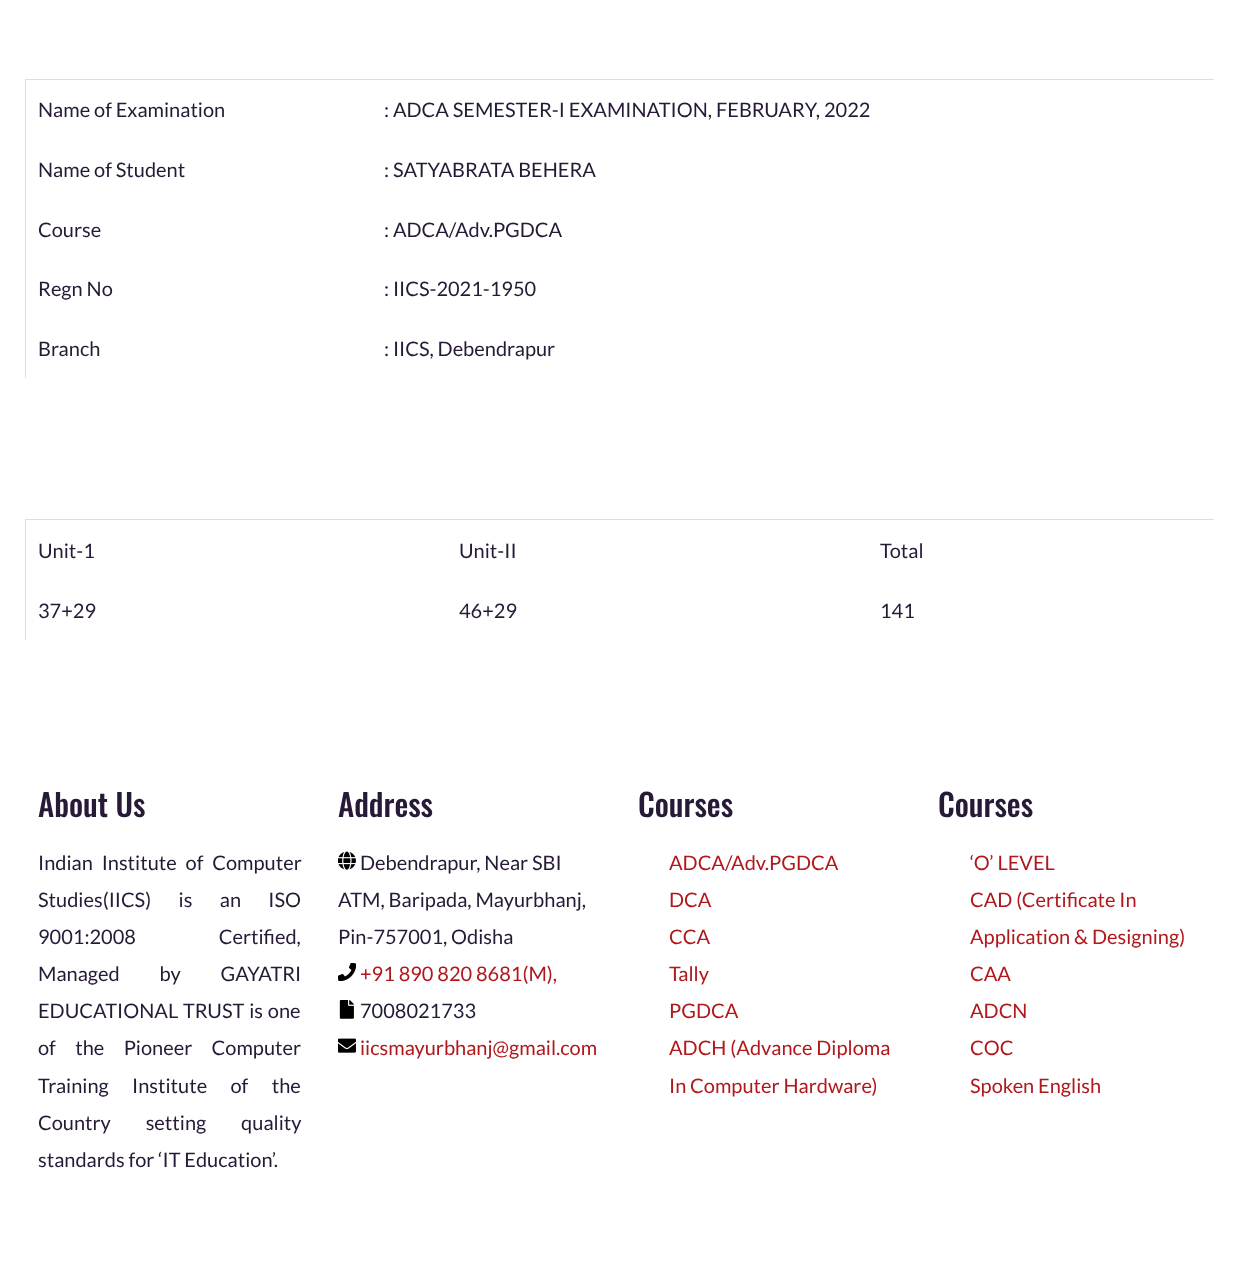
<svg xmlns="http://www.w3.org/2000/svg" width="1238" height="1266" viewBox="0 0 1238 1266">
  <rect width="100%" height="100%" fill="rgb(255,255,255)"/>
  <rect x="25" y="79" width="1189" height="1" fill="rgb(221,221,221)"/>
  <rect x="25" y="79" width="1" height="299" fill="rgb(221,221,221)"/>
  <g font-family="Lato" font-size="20" fill="rgb(38,26,54)">
    <text x="38" y="117">Name of Examination</text>
    <text x="384" y="117">: ADCA SEMESTER-I EXAMINATION, FEBRUARY, 2022</text>
    <text x="38" y="177">Name of Student</text>
    <text x="384" y="177">: SATYABRATA BEHERA</text>
    <text x="38" y="237">Course</text>
    <text x="384" y="237">: ADCA/Adv.PGDCA</text>
    <text x="38" y="296">Regn No</text>
    <text x="384" y="296">: IICS-2021-1950</text>
    <text x="38" y="356">Branch</text>
    <text x="384" y="356">: IICS, Debendrapur</text>
  </g>
  <rect x="25" y="519" width="1189" height="1" fill="rgb(221,221,221)"/>
  <rect x="25" y="519" width="1" height="121" fill="rgb(221,221,221)"/>
  <g font-family="Lato" font-size="20" fill="rgb(38,26,54)">
    <text x="38" y="558">Unit-1</text>
    <text x="459" y="558">Unit-II</text>
    <text x="880" y="558">Total</text>
    <text x="38" y="618">37+29</text>
    <text x="459" y="618">46+29</text>
    <text x="880" y="618">141</text>
  </g>
  <text x="38" y="817" font-family="Oswald" font-size="31" font-weight="500" fill="rgb(38,26,54)">About Us</text>
  <g font-family="Lato" font-size="20" fill="rgb(38,26,54)">
    <text>
      <tspan x="38" y="870" word-spacing="5">Indian Institute of Computer</tspan>
      <tspan x="38" y="907" word-spacing="23.5">Studies(IICS) is an ISO</tspan>
      <tspan x="38" y="944" word-spacing="79">9001:2008 Certified,</tspan>
      <tspan x="38" y="981" word-spacing="36">Managed by GAYATRI</tspan>
      <tspan x="38" y="1018" word-spacing="1">EDUCATIONAL TRUST is one</tspan>
      <tspan x="38" y="1055" word-spacing="15.5">of the Pioneer Computer</tspan>
      <tspan x="38" y="1093" word-spacing="19.5">Training Institute of the</tspan>
      <tspan x="38" y="1130" word-spacing="31">Country setting quality</tspan>
      <tspan x="38" y="1167">standards for ‘IT Education’.</tspan>
    </text>
  </g>
  <text x="338" y="817" font-family="Oswald" font-size="31" font-weight="500" fill="rgb(38,26,54)">Address</text>
  <image x="338" y="851" width="18" height="19" href="pic1.png"/>
  <g font-family="Lato" font-size="20" fill="rgb(38,26,54)">
    <text x="360" y="870">Debendrapur, Near SBI</text>
    <text>
      <tspan x="338" y="907">ATM, Baripada, Mayurbhanj,</tspan>
      <tspan x="338" y="944">Pin-757001, Odisha</tspan>
    </text>
  </g>
  <image x="338" y="963" width="18" height="18" href="pic2.png"/>
  <text x="360" y="981" font-family="Lato" font-size="20" fill="rgb(176,24,28)">+91 890 820 8681(M),</text>
  <image x="339" y="1000" width="15" height="19" href="pic3.png"/>
  <text x="360" y="1018" font-family="Lato" font-size="20" fill="rgb(38,26,54)">7008021733</text>
  <image x="338" y="1038" width="18" height="15" href="pic4.png"/>
  <text x="360" y="1055" font-family="Lato" font-size="20" fill="rgb(176,24,28)">iicsmayurbhanj@gmail.com</text>
  <text x="638" y="817" font-family="Oswald" font-size="31" font-weight="500" fill="rgb(38,26,54)">Courses</text>
  <g font-family="Lato" font-size="20" fill="rgb(176,24,28)">
    <text>
      <tspan x="669" y="870">ADCA/Adv.PGDCA</tspan>
      <tspan x="669" y="907">DCA</tspan>
      <tspan x="669" y="944">CCA</tspan>
      <tspan x="669" y="981">Tally</tspan>
      <tspan x="669" y="1018">PGDCA</tspan>
      <tspan x="669" y="1055">ADCH (Advance Diploma</tspan>
      <tspan x="669" y="1093">In Computer Hardware)</tspan>
    </text>
  </g>
  <text x="938" y="817" font-family="Oswald" font-size="31" font-weight="500" fill="rgb(38,26,54)">Courses</text>
  <g font-family="Lato" font-size="20" fill="rgb(176,24,28)">
    <text>
      <tspan x="970" y="870">‘O’ LEVEL</tspan>
      <tspan x="970" y="907">CAD (Certificate In</tspan>
      <tspan x="970" y="944">Application &amp; Designing)</tspan>
      <tspan x="970" y="981">CAA</tspan>
      <tspan x="970" y="1018">ADCN</tspan>
      <tspan x="970" y="1055">COC</tspan>
      <tspan x="970" y="1093">Spoken English</tspan>
    </text>
  </g>
</svg>
